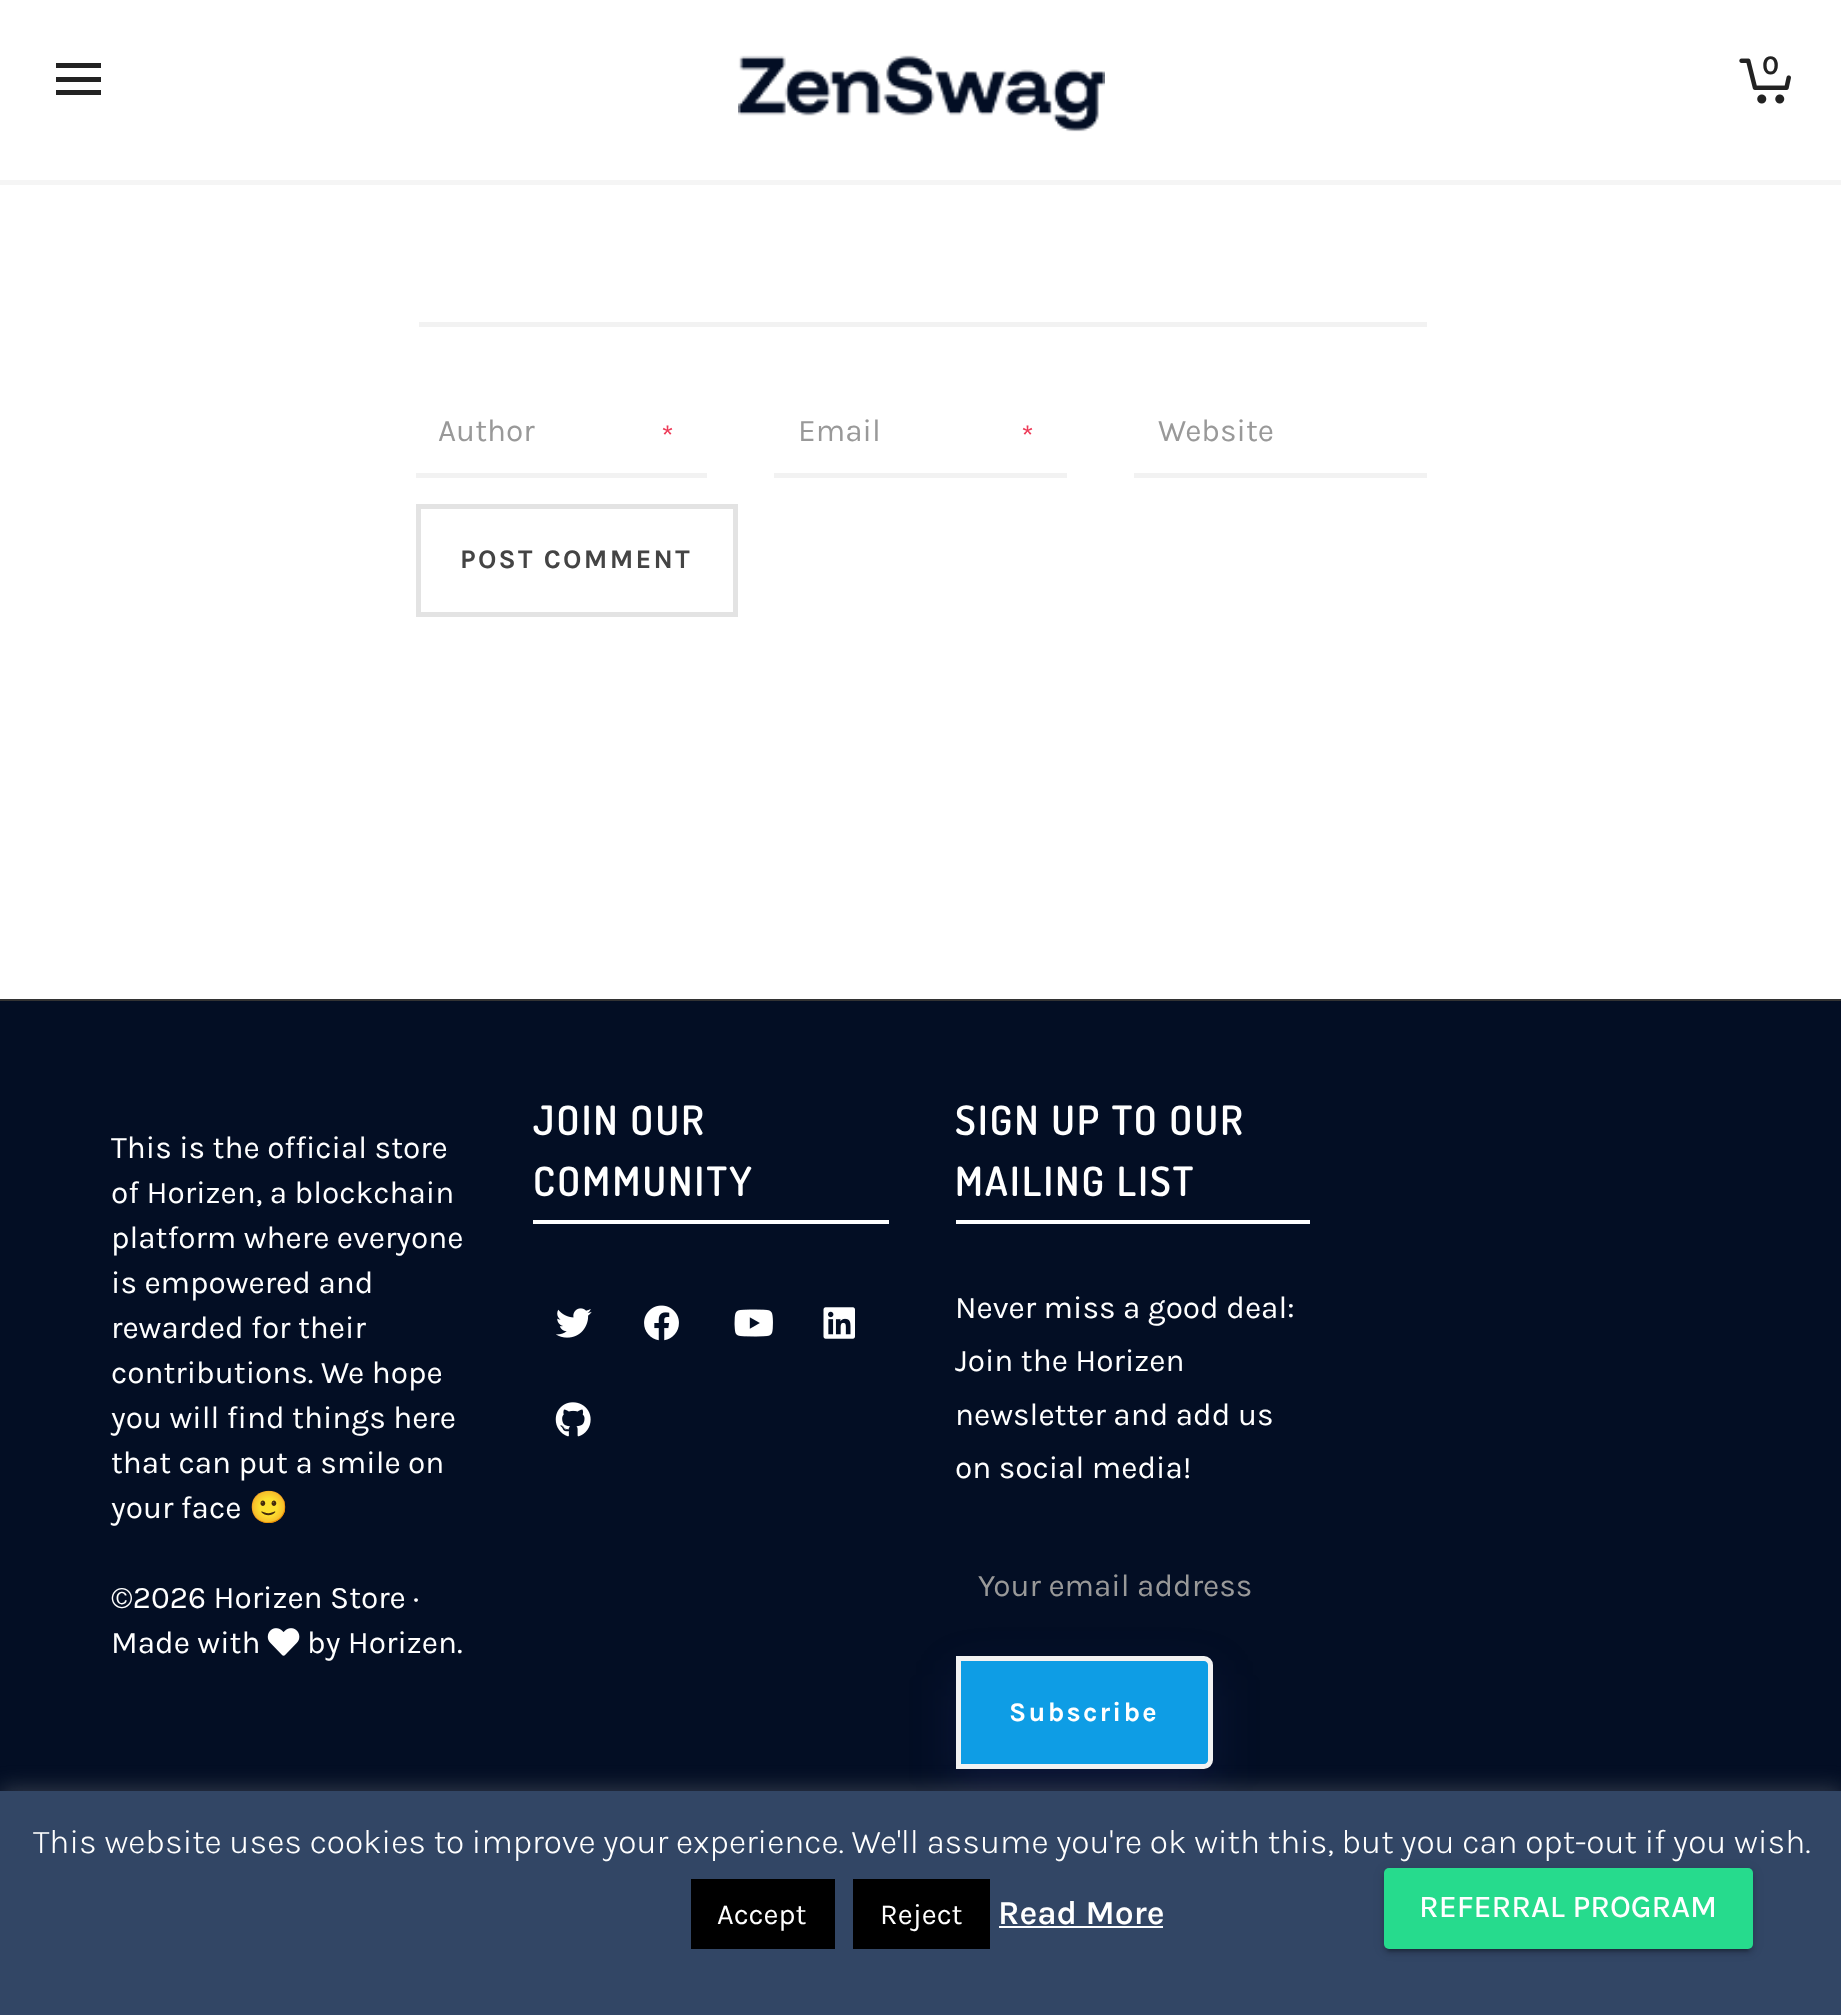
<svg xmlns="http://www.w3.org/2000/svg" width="1841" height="2015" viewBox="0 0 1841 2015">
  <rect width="100%" height="100%" fill="rgb(255,255,255)"/>
  <rect x="0" y="180" width="1841" height="5" fill="rgb(245,245,245)"/>
  <rect x="56" y="77" width="45" height="5" fill="rgb(34,34,34)"/>
  <rect x="56" y="63" width="45" height="5" fill="rgb(34,34,34)"/>
  <rect x="56" y="90" width="45" height="5" fill="rgb(34,34,34)"/>
  <image x="738" y="55" width="367" height="77" href="pic1.png"/>
  <image x="1739" y="58" width="52" height="46" href="pic2.png"/>
  <text x="1762" y="74" font-family="Karla" font-size="27" font-weight="bold" fill="rgb(34,34,34)">0</text>
  <rect x="419" y="322" width="1008" height="5" fill="rgb(242,242,242)"/>
  <rect x="416" y="473" width="291" height="5" fill="rgb(242,242,242)"/>
  <text x="438" y="441" font-family="Karla" font-size="31.5" fill="rgb(153,153,153)">Author</text>
  <text x="661" y="447" font-family="Karla" font-size="31.5" fill="rgb(238,60,89)">*</text>
  <rect x="774" y="473" width="293" height="5" fill="rgb(242,242,242)"/>
  <text x="798" y="441" font-family="Karla" font-size="31.5" fill="rgb(153,153,153)">Email</text>
  <text x="1021" y="447" font-family="Karla" font-size="31.5" fill="rgb(238,60,89)">*</text>
  <rect x="1134" y="473" width="293" height="5" fill="rgb(242,242,242)"/>
  <text x="1158" y="441" font-family="Karla" font-size="31.5" fill="rgb(153,153,153)">Website</text>
  <rect x="418.5" y="506.5" width="317" height="108" fill="none" stroke="rgb(227,227,227)" stroke-width="5"/>
  <text x="460" y="568" font-family="Karla" font-size="27" font-weight="bold" letter-spacing="2.25" fill="rgb(68,68,68)">POST COMMENT</text>
  <rect x="0" y="1001" width="1841" height="790" fill="rgb(3,14,36)"/>
  <rect x="0" y="999" width="1841" height="2" fill="rgb(51,51,51)"/>
  <g font-family="Karla" font-size="31.5" fill="rgb(255,255,255)">
    <text>
      <tspan x="111" y="1158">This is the official store</tspan>
      <tspan x="111" y="1203">of Horizen, a blockchain</tspan>
      <tspan x="111" y="1248">platform where everyone</tspan>
      <tspan x="111" y="1293">is empowered and</tspan>
      <tspan x="111" y="1338">rewarded for their</tspan>
      <tspan x="111" y="1383">contributions. We hope</tspan>
      <tspan x="111" y="1428">you will find things here</tspan>
      <tspan x="111" y="1473">that can put a smile on</tspan>
      <tspan x="111" y="1518">your face</tspan>
    </text>
  </g>
  <text x="249" y="1518" font-family="Noto Color Emoji" font-size="31.5" fill="rgb(255,255,255)">🙂</text>
  <g font-family="Karla" font-size="31.5" fill="rgb(255,255,255)">
    <text>
      <tspan x="111" y="1608">©2026 Horizen Store ·</tspan>
      <tspan x="111" y="1653">Made with</tspan>
    </text>
  </g>
  <image x="267" y="1628" width="33" height="28" href="pic3.png"/>
  <text x="307" y="1653" font-family="Karla" font-size="31.5" fill="rgb(255,255,255)">by Horizen.</text>
  <rect x="533" y="1220" width="356" height="4" fill="rgb(255,255,255)"/>
  <g font-family="Dosis" font-size="40.5" font-weight="600" letter-spacing="2.25" fill="rgb(255,255,255)">
    <text>
      <tspan x="533" y="1135">JOIN OUR</tspan>
      <tspan x="533" y="1196">COMMUNITY</tspan>
    </text>
  </g>
  <image x="556" y="1308" width="36" height="30" href="pic4.png"/>
  <image x="644" y="1305" width="35" height="36" href="pic5.png"/>
  <image x="734" y="1309" width="39" height="28" href="pic6.png"/>
  <image x="823" y="1307" width="32" height="32" href="pic7.png"/>
  <image x="555" y="1402" width="36" height="35" href="pic8.png"/>
  <rect x="956" y="1220" width="354" height="4" fill="rgb(255,255,255)"/>
  <g font-family="Dosis" font-size="40.5" font-weight="600" letter-spacing="2.25" fill="rgb(255,255,255)">
    <text>
      <tspan x="955" y="1135">SIGN UP TO OUR</tspan>
      <tspan x="955" y="1196">MAILING LIST</tspan>
    </text>
  </g>
  <g font-family="Karla" font-size="31.5" fill="rgb(255,255,255)">
    <text>
      <tspan x="955" y="1318">Never miss a good deal:</tspan>
      <tspan x="955" y="1371">Join the Horizen</tspan>
      <tspan x="955" y="1425">newsletter and add us</tspan>
      <tspan x="955" y="1478">on social media!</tspan>
    </text>
  </g>
  <text x="978" y="1596" font-family="Karla" font-size="31.5" fill="rgb(153,153,153)">Your email address</text>
  <rect x="956" y="1674" width="257" height="113" rx="9" fill="rgba(47,52,130,0.2)" filter="blur(22.5px)"/>
  <path d="M958.5 1658.5H1204C1207.5 1658.5 1210.5 1661.5 1210.5 1665V1760C1210.5 1763.5 1207.5 1766.5 1204 1766.5H958.5Z" fill="rgb(14,157,229)" stroke="rgb(242,242,242)" stroke-width="5"/>
  <text x="1009" y="1721" font-family="Karla" font-size="27" font-weight="bold" letter-spacing="2.25" fill="rgb(255,255,255)">Subscribe</text>
  <rect x="0" y="1789" width="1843" height="225" fill="rgba(172,171,171,0.3)" filter="blur(11px)"/>
  <rect x="0" y="1791" width="1841" height="224" fill="rgb(50,70,101)"/>
  <text x="33" y="1853" font-family="Karla" font-size="33.75" font-weight="300" fill="rgb(255,255,255)">This website uses cookies to improve your experience. We'll assume you're ok with this, but you can opt-out if you wish.</text>
  <rect x="691" y="1879" width="144" height="70" fill="rgb(0,0,0)"/>
  <text x="717" y="1924" font-family="Karla" font-size="29" fill="rgb(255,255,255)">Accept</text>
  <rect x="853" y="1879" width="137" height="70" fill="rgb(0,0,0)"/>
  <text x="880" y="1924" font-family="Karla" font-size="29" fill="rgb(255,255,255)">Reject</text>
  <text x="998" y="1924" font-family="Karla" font-size="33.75" font-weight="600" fill="rgb(255,255,255)">Read More</text>
  <rect x="999" y="1926" width="164" height="2" fill="rgb(255,255,255)"/>
  <rect x="1384" y="1870" width="369" height="81" rx="5" fill="rgba(0,0,0,0.12)" filter="blur(5.5px)"/>
  <rect x="1388" y="1879" width="360" height="72" fill="rgba(0,0,0,0.2)" filter="blur(1px)"/>
  <rect x="1384" y="1872" width="369" height="81" rx="5" fill="rgba(0,0,0,0.14)" filter="blur(2px)"/>
  <rect x="1384" y="1868" width="369" height="81" rx="5" fill="rgb(38,219,141)"/>
  <text x="1419" y="1917" font-family="Karla" font-size="31.5" font-weight="500" fill="rgb(255,255,255)">REFERRAL PROGRAM</text>
</svg>
